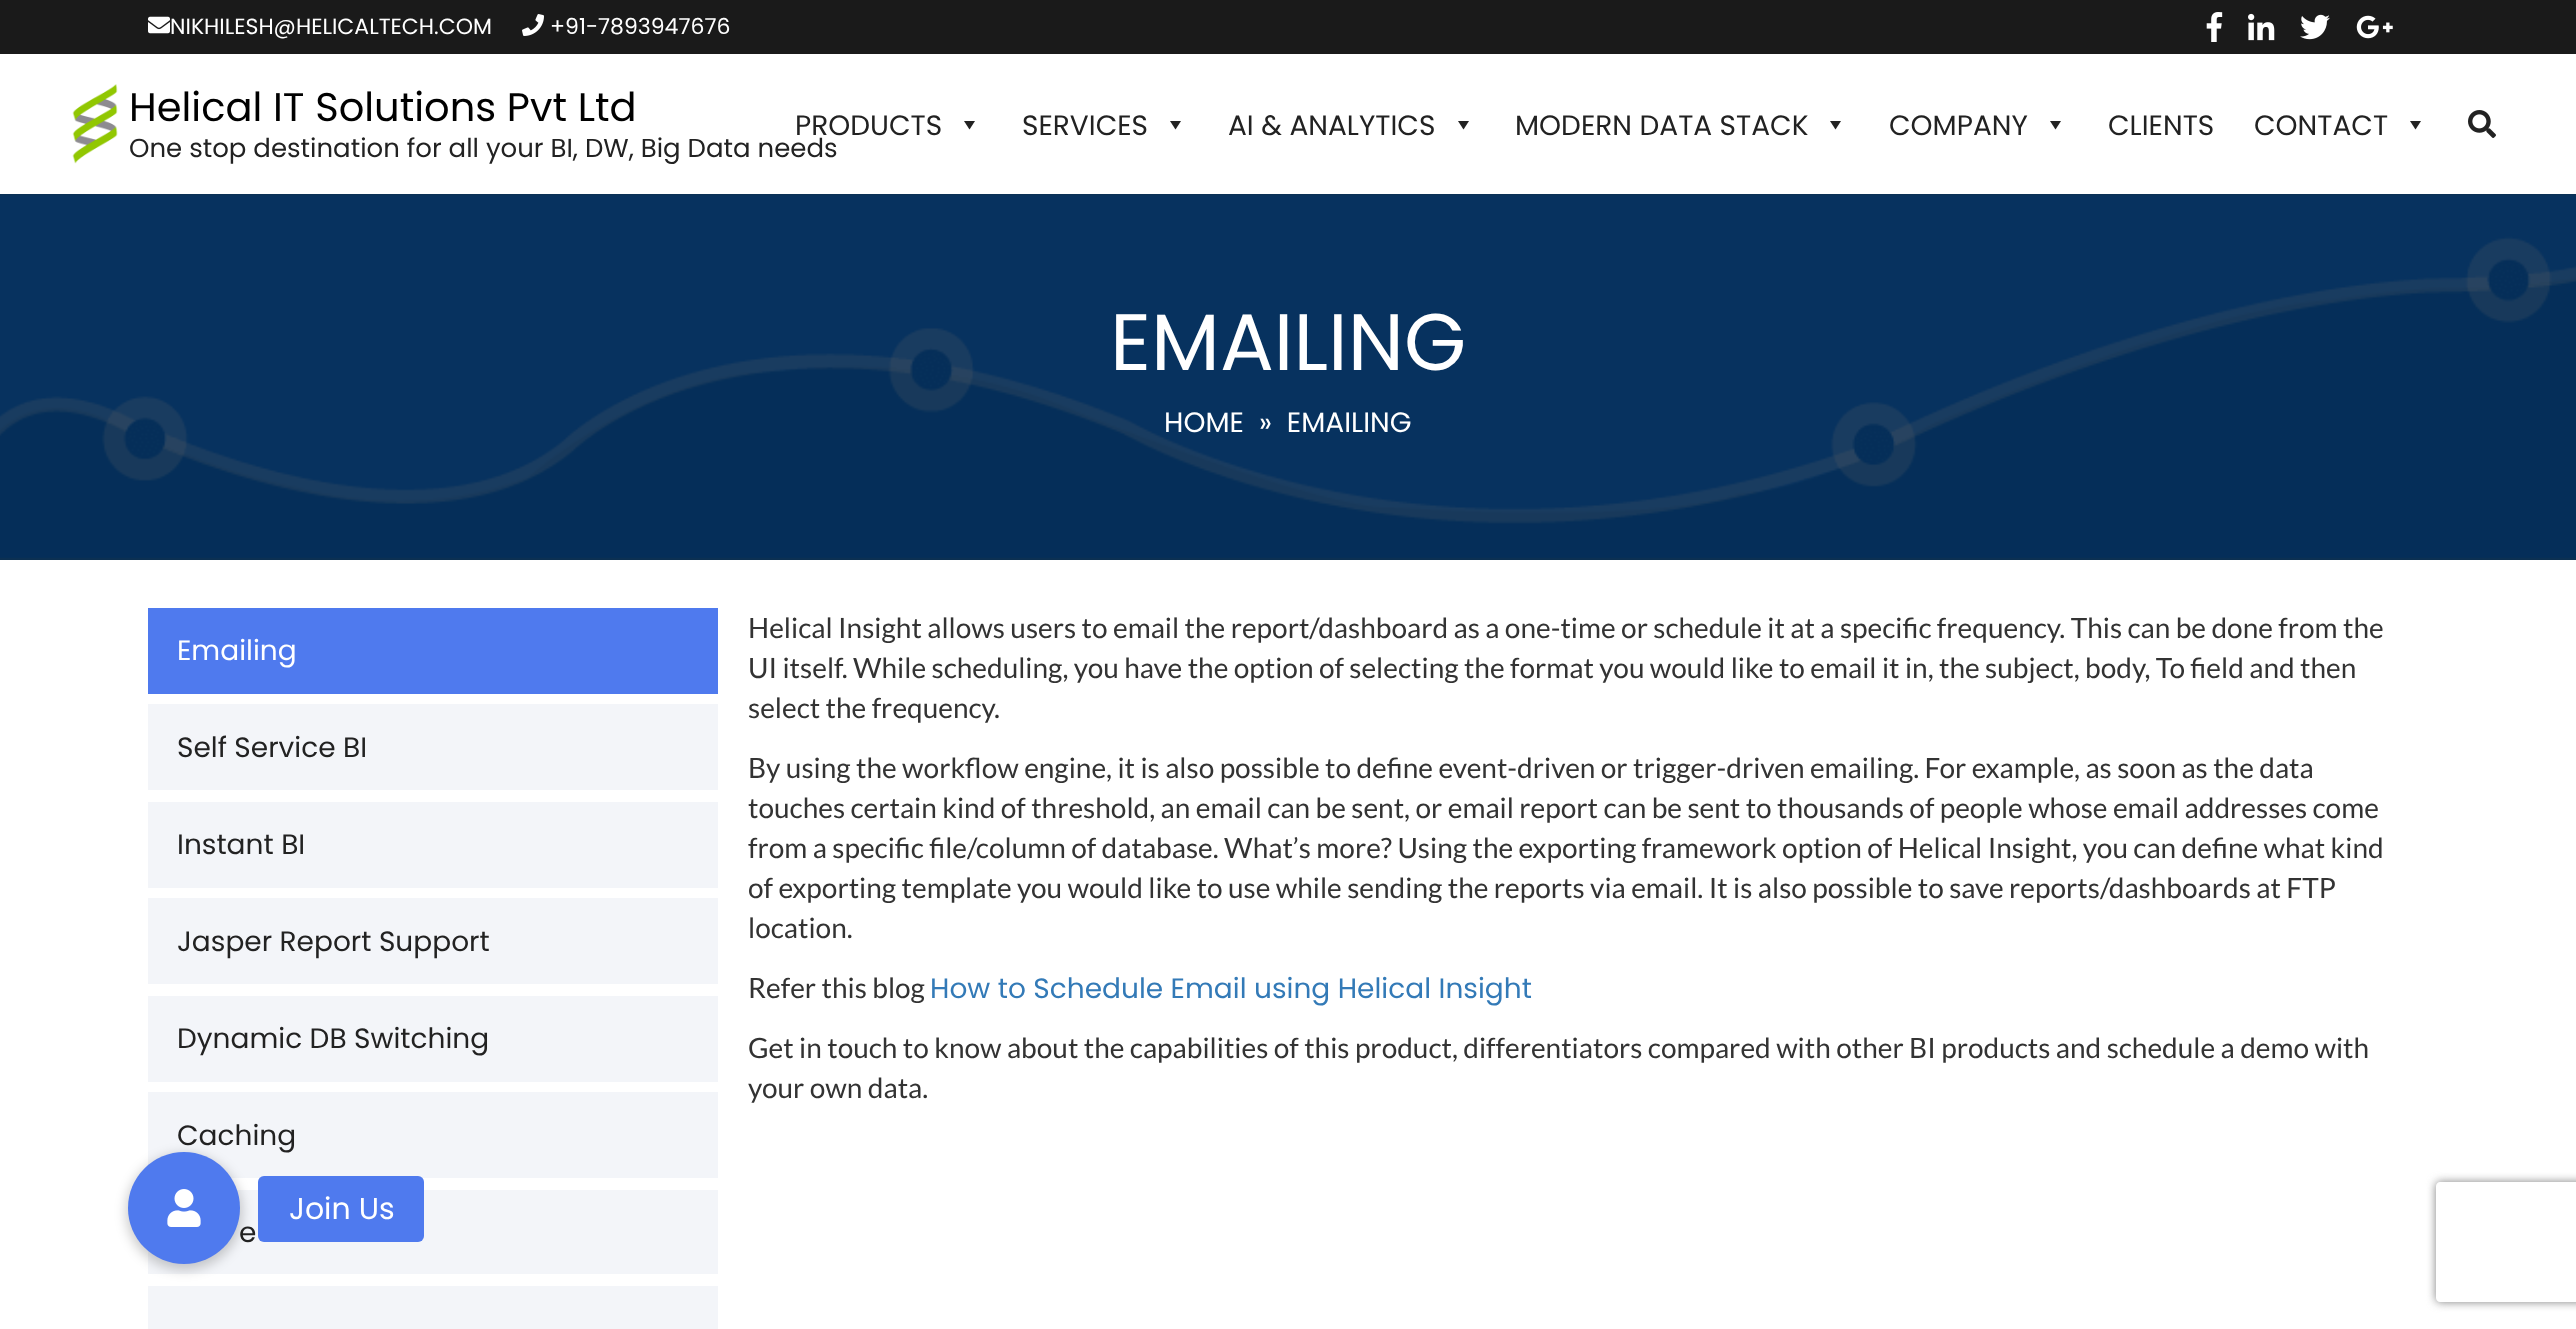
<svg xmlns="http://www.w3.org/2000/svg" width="2576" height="1329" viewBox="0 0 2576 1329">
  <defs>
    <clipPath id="clip1"><path d="M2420 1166H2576V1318H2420ZM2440 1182H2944C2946 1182 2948 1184 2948 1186V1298C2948 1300 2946 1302 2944 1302H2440C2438 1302 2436 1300 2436 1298V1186C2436 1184 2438 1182 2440 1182Z" clip-rule="evenodd"/></clipPath>
  </defs>
  <rect width="100%" height="100%" fill="rgb(255,255,255)"/>
  <rect x="0" y="0" width="2576" height="54" fill="rgb(26,26,26)"/>
  <image x="148" y="16" width="22" height="18" href="pic1.png"/>
  <text x="170" y="34" font-family="Poppins" font-size="22" fill="rgb(255,255,255)">NIKHILESH@HELICALTECH.COM</text>
  <image x="522" y="14" width="22" height="22" href="pic2.png"/>
  <text x="550" y="34" font-family="Poppins" font-size="22" fill="rgb(255,255,255)">+91-7893947676</text>
  <image x="2206" y="12" width="17" height="30" href="pic3.png"/>
  <image x="2248" y="13" width="27" height="28" href="pic4.png"/>
  <image x="2300" y="14" width="30" height="26" href="pic5.png"/>
  <image x="2356" y="15" width="37" height="24" href="pic6.png"/>
  <image x="72" y="84" width="46" height="80" href="pic7.png"/>
  <text x="129" y="121" font-family="Poppins" font-size="40" fill="rgb(0,0,0)">Helical IT Solutions Pvt Ltd</text>
  <text x="129" y="157" font-family="Poppins" font-size="26" fill="rgb(34,34,34)">One stop destination for all your BI, DW, Big Data needs</text>
  <text x="795" y="135" font-family="Poppins" font-size="28" fill="rgb(34,34,34)">PRODUCTS</text>
  <path d="M975 121L969.5 129.5L964 121Z" fill="rgb(34,34,34)"/>
  <text x="1022" y="135" font-family="Poppins" font-size="28" fill="rgb(34,34,34)">SERVICES</text>
  <path d="M1181 121L1175.5 129.5L1170 121Z" fill="rgb(34,34,34)"/>
  <text x="1228" y="135" font-family="Poppins" font-size="28" fill="rgb(34,34,34)">AI &amp; ANALYTICS</text>
  <path d="M1469 121L1463.5 129.5L1458 121Z" fill="rgb(34,34,34)"/>
  <text x="1515" y="135" font-family="Poppins" font-size="28" fill="rgb(34,34,34)">MODERN DATA STACK</text>
  <path d="M1841 121L1835.5 129.5L1830 121Z" fill="rgb(34,34,34)"/>
  <text x="1889" y="135" font-family="Poppins" font-size="28" fill="rgb(34,34,34)">COMPANY</text>
  <path d="M2061 121L2055.5 129.5L2050 121Z" fill="rgb(34,34,34)"/>
  <g font-family="Poppins" font-size="28" fill="rgb(34,34,34)">
    <text x="2108" y="135">CLIENTS</text>
    <text x="2254" y="135">CONTACT</text>
  </g>
  <path d="M2421 121L2415.5 129.5L2410 121Z" fill="rgb(34,34,34)"/>
  <image x="2468" y="110" width="28" height="28" href="pic8.png"/>
  <rect x="0" y="194" width="2576" height="366" fill="rgb(20,48,71)"/>
  <image x="0" y="194" width="2576" height="366" href="pic9.png"/>
  <text x="1110" y="370" font-family="Poppins" font-size="80" fill="rgb(255,255,255)">EMAILING</text>
  <g font-family="Poppins" font-size="28" fill="rgb(255,255,255)">
    <text x="1164" y="432">HOME</text>
    <text x="1259" y="432" xml:space="preserve">»  EMAILING</text>
  </g>
  <rect x="148" y="608" width="570" height="86" fill="rgb(79,122,238)"/>
  <text x="177" y="660" font-family="Poppins" font-size="28" fill="rgb(255,255,255)">Emailing</text>
  <rect x="148" y="704" width="570" height="86" fill="rgb(243,245,249)"/>
  <text x="177" y="757" font-family="Poppins" font-size="28" fill="rgb(34,34,34)">Self Service BI</text>
  <rect x="148" y="802" width="570" height="86" fill="rgb(243,245,249)"/>
  <text x="177" y="854" font-family="Poppins" font-size="28" fill="rgb(34,34,34)">Instant BI</text>
  <rect x="148" y="898" width="570" height="86" fill="rgb(243,245,249)"/>
  <text x="177" y="951" font-family="Poppins" font-size="28" fill="rgb(34,34,34)">Jasper Report Support</text>
  <rect x="148" y="996" width="570" height="86" fill="rgb(243,245,249)"/>
  <text x="177" y="1048" font-family="Poppins" font-size="28" fill="rgb(34,34,34)">Dynamic DB Switching</text>
  <rect x="148" y="1092" width="570" height="86" fill="rgb(243,245,249)"/>
  <text x="177" y="1145" font-family="Poppins" font-size="28" fill="rgb(34,34,34)">Caching</text>
  <rect x="148" y="1190" width="570" height="84" fill="rgb(243,245,249)"/>
  <text x="239" y="1242" font-family="Poppins" font-size="28" fill="rgb(34,34,34)">e</text>
  <rect x="148" y="1286" width="570" height="43" fill="rgb(243,245,249)"/>
  <g font-family="Lato" font-size="28" fill="rgb(51,51,51)">
    <text>
      <tspan x="748" y="638">Helical Insight allows users to email the report/dashboard as a one-time or schedule it at a specific frequency. This can be done from the</tspan>
      <tspan x="748" y="678">UI itself. While scheduling, you have the option of selecting the format you would like to email it in, the subject, body, To field and then</tspan>
      <tspan x="748" y="718">select the frequency.</tspan>
    </text>
    <text>
      <tspan x="748" y="778">By using the workflow engine, it is also possible to define event-driven or trigger-driven emailing. For example, as soon as the data</tspan>
      <tspan x="748" y="818">touches certain kind of threshold, an email can be sent, or email report can be sent to thousands of people whose email addresses come</tspan>
      <tspan x="748" y="858">from a specific file/column of database. What’s more? Using the exporting framework option of Helical Insight, you can define what kind</tspan>
      <tspan x="748" y="898">of exporting template you would like to use while sending the reports via email. It is also possible to save reports/dashboards at FTP</tspan>
      <tspan x="748" y="938">location.</tspan>
    </text>
    <text x="748" y="998">Refer this blog</text>
  </g>
  <text x="930" y="998" font-family="Poppins" font-size="28" fill="rgb(51,122,183)">How to Schedule Email using Helical Insight</text>
  <g font-family="Lato" font-size="28" fill="rgb(51,51,51)">
    <text>
      <tspan x="748" y="1058">Get in touch to know about the capabilities of this product, differentiators compared with other BI products and schedule a demo with</tspan>
      <tspan x="748" y="1098">your own data.</tspan>
    </text>
  </g>
  <g clip-path="url(#clip1)">
    <rect x="2436" y="1182" width="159" height="120" rx="4" fill="rgb(128,128,128)" filter="blur(5px)"/>
  </g>
  <rect x="126" y="1154" width="116" height="116" rx="58" fill="rgba(0,0,0,0.2)" filter="blur(6px)"/>
  <circle cx="184" cy="1208" r="56" fill="rgb(79,122,238)"/>
  <image x="167" y="1189" width="34" height="38" href="pic10.png"/>
  <rect x="258" y="1176" width="166" height="66" rx="6" fill="rgb(79,122,238)"/>
  <text x="289" y="1219" font-family="Poppins" font-size="30" fill="rgb(255,255,255)">Join Us</text>
</svg>
